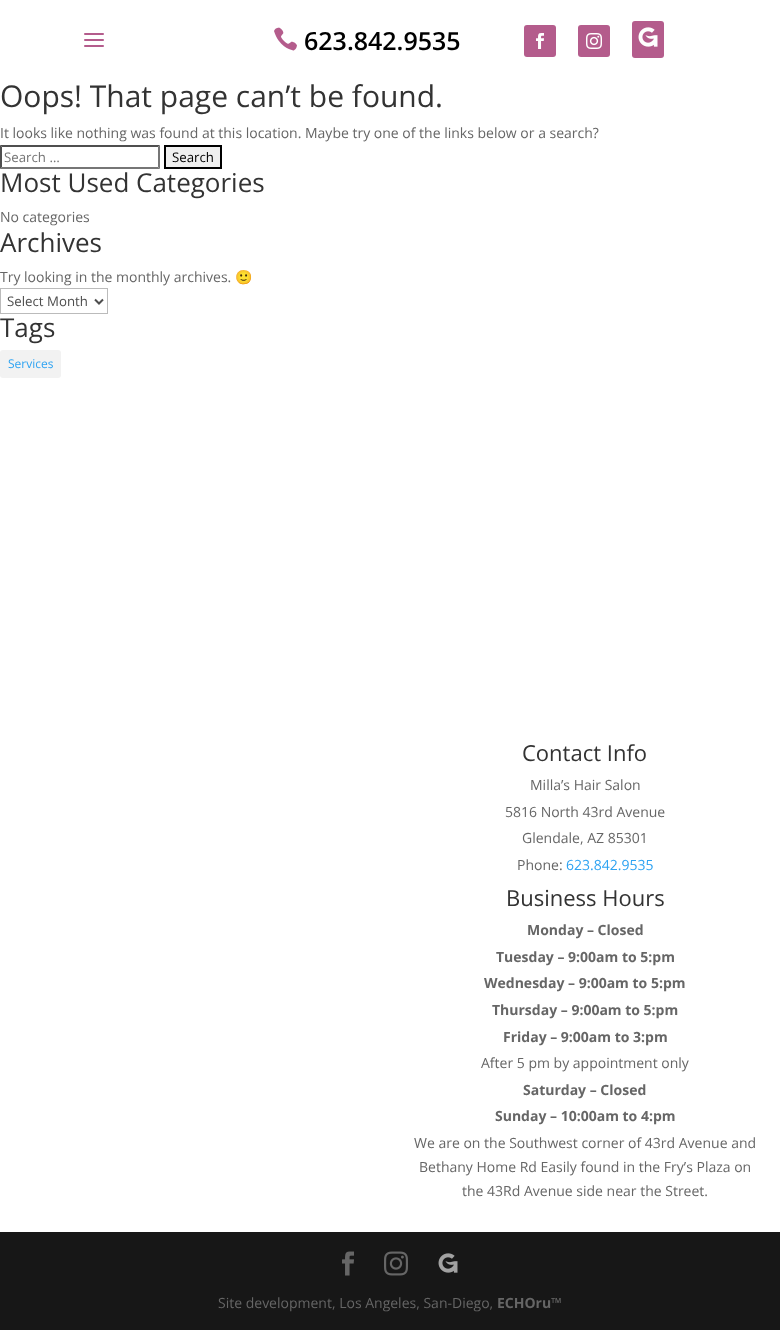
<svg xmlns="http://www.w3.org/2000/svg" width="780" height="1330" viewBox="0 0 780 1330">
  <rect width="100%" height="100%" fill="rgb(255,255,255)"/>
  <image x="84" y="33" width="20" height="14" href="pic1.png"/>
  <image x="274" y="27" width="23" height="24" href="pic2.png"/>
  <text x="304" y="50" font-family="Open Sans" font-size="25" font-weight="600" fill="rgb(0,0,0)">623.842.9535</text>
  <rect x="524" y="25" width="32" height="32" rx="3" fill="rgb(180,92,140)"/>
  <image x="536" y="33" width="8" height="16" href="pic3.png"/>
  <rect x="578" y="25" width="32" height="32" rx="3" fill="rgb(180,92,140)"/>
  <image x="586" y="33" width="16" height="16" href="pic4.png"/>
  <rect x="632" y="21" width="32" height="37" rx="3" fill="rgb(180,92,140)"/>
  <image x="638" y="27" width="20" height="20" href="pic5.png"/>
  <text x="0" y="107" font-family="Open Sans" font-size="30" fill="rgb(51,51,51)">Oops! That page can’t be found.</text>
  <text x="0" y="138" font-family="Open Sans" font-size="14" fill="rgb(102,102,102)">It looks like nothing was found at this location. Maybe try one of the links below or a search?</text>
  <path d="M0 145H160L158 147H2Z" fill="rgb(79,79,79)"/>
  <path d="M160 145V169L158 167V147Z" fill="rgb(118,118,118)"/>
  <path d="M160 169H0L2 167H158Z" fill="rgb(118,118,118)"/>
  <path d="M0 169V145L2 147V167Z" fill="rgb(79,79,79)"/>
  <text x="4" y="162" font-family="Open Sans" font-size="13.25" fill="rgb(117,117,117)">Search …</text>
  <rect x="165" y="146" width="56" height="22" fill="rgb(239,239,239)" stroke="rgb(0,0,0)" stroke-width="2"/>
  <text x="172" y="162" font-family="Open Sans" font-size="13.25" fill="rgb(0,0,0)">Search</text>
  <text x="0" y="192" font-family="Open Sans" font-size="26" fill="rgb(51,51,51)">Most Used Categories</text>
  <text x="0" y="222" font-family="Open Sans" font-size="14" fill="rgb(102,102,102)">No categories</text>
  <text x="0" y="252" font-family="Open Sans" font-size="26" fill="rgb(51,51,51)">Archives</text>
  <text x="0" y="282" font-family="Open Sans" font-size="14" fill="rgb(102,102,102)">Try looking in the monthly archives.</text>
  <text x="235" y="282" font-family="Noto Color Emoji" font-size="14" fill="rgb(102,102,102)">🙂</text>
  <rect x="0.5" y="288.5" width="107" height="25" fill="none" stroke="rgb(187,187,187)"/>
  <path d="M95 299.5L99 303.5L103 299.5" fill="none" stroke="rgb(78,78,78)" stroke-width="2"/>
  <text x="7" y="306" font-family="Open Sans" font-size="13.25" fill="rgb(78,78,78)">Select Month</text>
  <text x="0" y="337" font-family="Open Sans" font-size="26" fill="rgb(51,51,51)">Tags</text>
  <rect x="0" y="350" width="61" height="28" rx="3" fill="rgb(242,242,242)"/>
  <text x="8" y="368" font-family="Open Sans" font-size="12" fill="rgb(46,163,242)">Services</text>
  <text x="522" y="761" font-family="Open Sans" font-size="22" fill="rgb(51,51,51)">Contact Info</text>
  <g font-family="Open Sans" font-size="14" fill="rgb(102,102,102)">
    <text x="530" y="790">Milla’s Hair Salon</text>
    <text x="505" y="817">5816 North 43rd Avenue</text>
    <text x="522" y="843">Glendale, AZ 85301</text>
    <text x="517" y="870">Phone:</text>
  </g>
  <text x="566" y="870" font-family="Open Sans" font-size="14" fill="rgb(46,163,242)">623.842.9535</text>
  <text x="506" y="906" font-family="Open Sans" font-size="22" fill="rgb(51,51,51)">Business Hours</text>
  <g font-family="Open Sans" font-size="14" font-weight="bold" fill="rgb(102,102,102)">
    <text x="527" y="935">Monday – Closed</text>
    <text x="496" y="962">Tuesday – 9:00am to 5:pm</text>
    <text x="484" y="988">Wednesday – 9:00am to 5:pm</text>
    <text x="492" y="1015">Thursday – 9:00am to 5:pm</text>
    <text x="503" y="1042">Friday – 9:00am to 3:pm</text>
  </g>
  <text x="481" y="1068" font-family="Open Sans" font-size="14" fill="rgb(102,102,102)">After 5 pm by appointment only</text>
  <g font-family="Open Sans" font-size="14" font-weight="bold" fill="rgb(102,102,102)">
    <text x="523" y="1095">Saturday – Closed</text>
    <text x="495" y="1121">Sunday – 10:00am to 4:pm</text>
  </g>
  <g font-family="Open Sans" font-size="14" fill="rgb(102,102,102)">
    <text x="414" y="1148">We are on the Southwest corner of 43rd Avenue and</text>
    <text x="419" y="1172">Bethany Home Rd Easily found in the Fry’s Plaza on</text>
    <text x="462" y="1196">the 43Rd Avenue side near the Street.</text>
  </g>
  <rect x="0" y="1232" width="780" height="98" fill="rgb(23,23,23)"/>
  <image x="342" y="1251" width="12" height="25" href="pic6.png"/>
  <image x="384" y="1251" width="24" height="25" href="pic7.png"/>
  <image x="438" y="1253" width="20" height="20" href="pic8.png"/>
  <text x="218" y="1308" font-family="Open Sans" font-size="14" fill="rgb(102,102,102)">Site development, Los Angeles, San-Diego,</text>
  <text x="497" y="1308" font-family="Open Sans" font-size="14" font-weight="bold" fill="rgb(102,102,102)">ECHOru</text>
  <text x="551" y="1308" font-family="Open Sans" font-size="14" fill="rgb(102,102,102)">™</text>
</svg>
